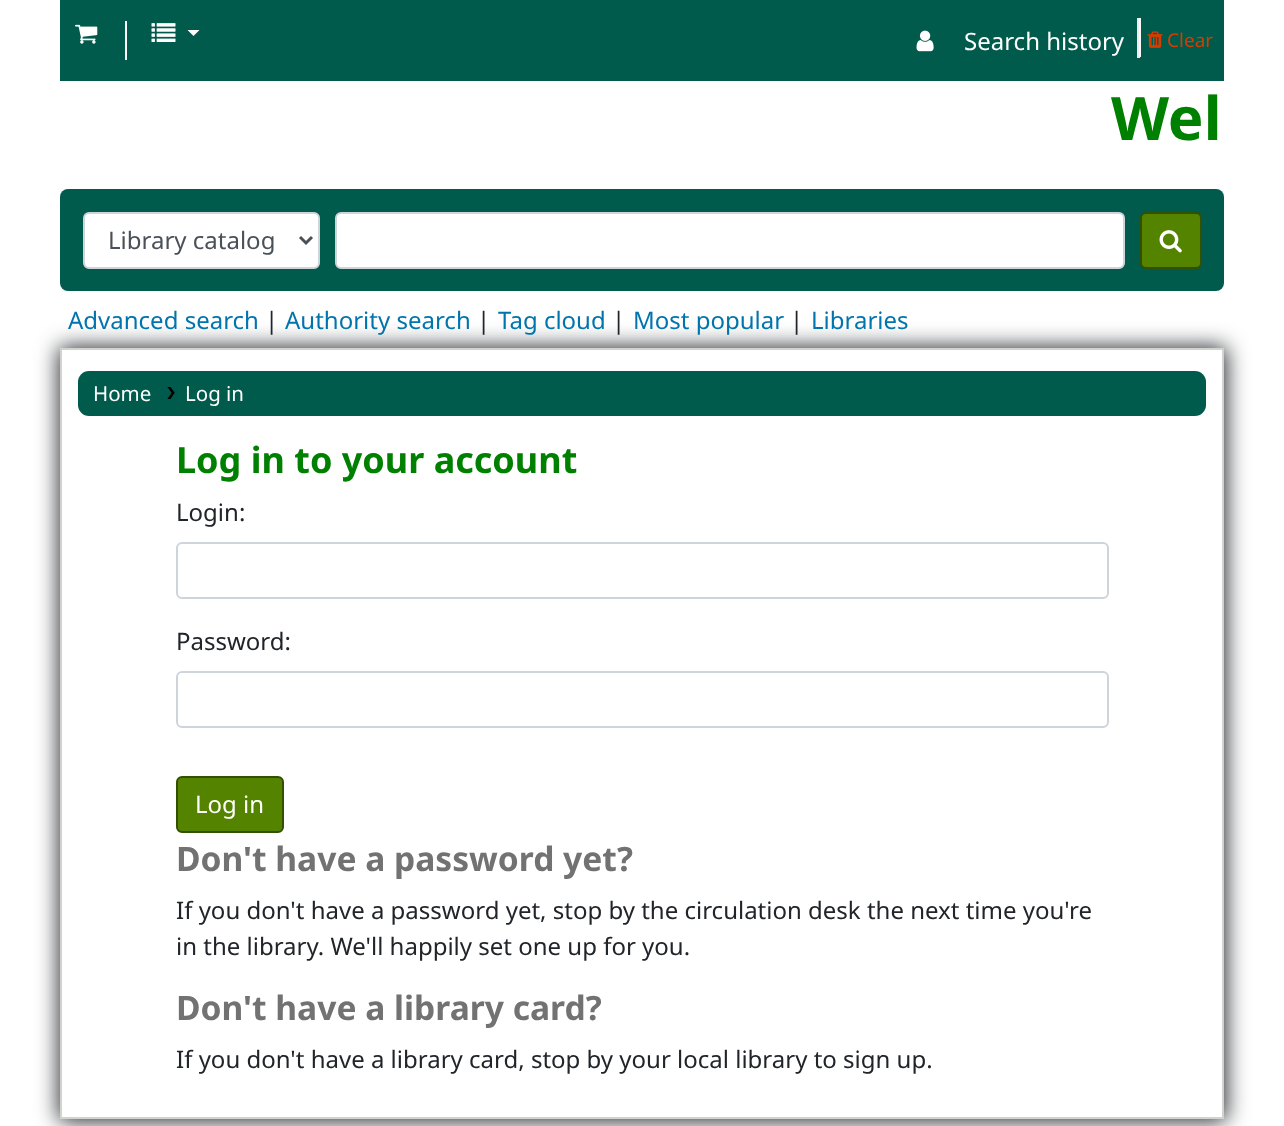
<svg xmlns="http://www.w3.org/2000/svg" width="1284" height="1126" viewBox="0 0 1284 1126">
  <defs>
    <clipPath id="clip1"><path d="M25 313H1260V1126H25ZM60 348H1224V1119H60Z" clip-rule="evenodd"/></clipPath>
  </defs>
  <rect width="100%" height="100%" fill="rgb(255,255,255)"/>
  <rect x="60" y="0" width="1164" height="81" fill="rgb(0,91,76)"/>
  <image x="75" y="24" width="23" height="20" href="pic1.png"/>
  <rect x="125" y="21" width="2" height="39" fill="rgb(255,255,255)"/>
  <image x="151" y="23" width="25" height="19" href="pic2.png"/>
  <path d="M187.5 30H199.5L193.5 36Z" fill="rgb(255,255,255)"/>
  <image x="916" y="30" width="18" height="22" href="pic3.png"/>
  <text x="964" y="50" font-family="Noto Sans" font-size="24" fill="rgb(255,255,255)">Search history</text>
  <rect x="1139" y="18" width="2" height="39" fill="rgb(252,249,252)"/>
  <rect x="1137" y="56" width="3" height="2" fill="rgb(238,238,238)"/>
  <rect x="1137" y="18" width="2" height="39" fill="rgb(238,238,238)"/>
  <image x="1147" y="31" width="16" height="17" href="pic4.png"/>
  <text x="1167" y="47" font-family="Noto Sans" font-size="19" fill="rgb(212,60,0)">Clear</text>
  <text x="1111" y="140" font-family="Noto Sans" font-size="60" font-weight="bold" fill="rgb(0,128,0)">Wel</text>
  <rect x="60" y="189" width="1164" height="102" rx="8" fill="rgb(0,91,76)"/>
  <rect x="84" y="213" width="235" height="55" rx="5" fill="rgb(255,255,255)" stroke="rgb(206,212,218)" stroke-width="2"/>
  <path d="M300 237L306 243L312 237" fill="none" stroke="rgb(73,80,87)" stroke-width="3"/>
  <text x="108" y="249" font-family="Noto Sans" font-size="24" fill="rgb(73,80,87)">Library catalog</text>
  <rect x="336" y="213" width="788" height="55" rx="5" fill="rgb(255,255,255)" stroke="rgb(206,212,218)" stroke-width="2"/>
  <rect x="1141" y="213" width="60" height="55" rx="5" fill="rgb(84,131,0)" stroke="rgb(51,80,0)" stroke-width="2"/>
  <image x="1159" y="230" width="23" height="23" href="pic5.png"/>
  <g clip-path="url(#clip1)">
    <rect x="59" y="347" width="1167" height="774" fill="rgb(33,37,41)" filter="blur(11px)"/>
  </g>
  <text x="68" y="329" font-family="Noto Sans" font-size="24" fill="rgb(0,116,173)">Advanced search</text>
  <text x="265" y="329" font-family="Noto Sans" font-size="24" fill="rgb(33,37,41)">|</text>
  <text x="285" y="329" font-family="Noto Sans" font-size="24" fill="rgb(0,116,173)">Authority search</text>
  <text x="477" y="329" font-family="Noto Sans" font-size="24" fill="rgb(33,37,41)">|</text>
  <text x="498" y="329" font-family="Noto Sans" font-size="24" fill="rgb(0,116,173)">Tag cloud</text>
  <text x="612" y="329" font-family="Noto Sans" font-size="24" fill="rgb(33,37,41)">|</text>
  <text x="633" y="329" font-family="Noto Sans" font-size="24" fill="rgb(0,116,173)">Most popular</text>
  <text x="790" y="329" font-family="Noto Sans" font-size="24" fill="rgb(33,37,41)">|</text>
  <text x="811" y="329" font-family="Noto Sans" font-size="24" fill="rgb(0,116,173)">Libraries</text>
  <rect x="61" y="349" width="1162" height="769" fill="none" stroke="rgb(210,210,207)" stroke-width="2"/>
  <rect x="78" y="371" width="1128" height="45" rx="11" fill="rgb(0,91,76)"/>
  <text x="93" y="401" font-family="Noto Sans" font-size="20.5" fill="rgb(255,255,255)">Home</text>
  <image x="167" y="387" width="8" height="12" href="pic6.png"/>
  <text x="185" y="401" font-family="Noto Sans" font-size="20.5" fill="rgb(255,255,255)">Log in</text>
  <text x="176" y="473" font-family="Noto Sans" font-size="36" font-weight="bold" fill="rgb(0,128,0)">Log in to your account</text>
  <text x="176" y="521" font-family="Noto Sans" font-size="24" fill="rgb(33,37,41)">Login:</text>
  <rect x="177" y="543" width="931" height="55" rx="5" fill="none" stroke="rgb(206,212,218)" stroke-width="2"/>
  <text x="176" y="650" font-family="Noto Sans" font-size="24" fill="rgb(33,37,41)">Password:</text>
  <rect x="177" y="672" width="931" height="55" rx="5" fill="none" stroke="rgb(206,212,218)" stroke-width="2"/>
  <rect x="177" y="777" width="106" height="55" rx="5" fill="rgb(84,131,0)" stroke="rgb(51,80,0)" stroke-width="2"/>
  <text x="195" y="813" font-family="Noto Sans" font-size="24" fill="rgb(255,255,255)">Log in</text>
  <text x="176" y="871" font-family="Noto Sans" font-size="33.6" font-weight="bold" fill="rgb(114,114,114)">Don't have a password yet?</text>
  <g font-family="Noto Sans" font-size="24" fill="rgb(33,37,41)">
    <text>
      <tspan x="176" y="919">If you don't have a password yet, stop by the circulation desk the next time you're</tspan>
      <tspan x="176" y="955">in the library. We'll happily set one up for you.</tspan>
    </text>
  </g>
  <text x="176" y="1020" font-family="Noto Sans" font-size="33.6" font-weight="bold" fill="rgb(114,114,114)">Don't have a library card?</text>
  <text x="176" y="1068" font-family="Noto Sans" font-size="24" fill="rgb(33,37,41)">If you don't have a library card, stop by your local library to sign up.</text>
</svg>
